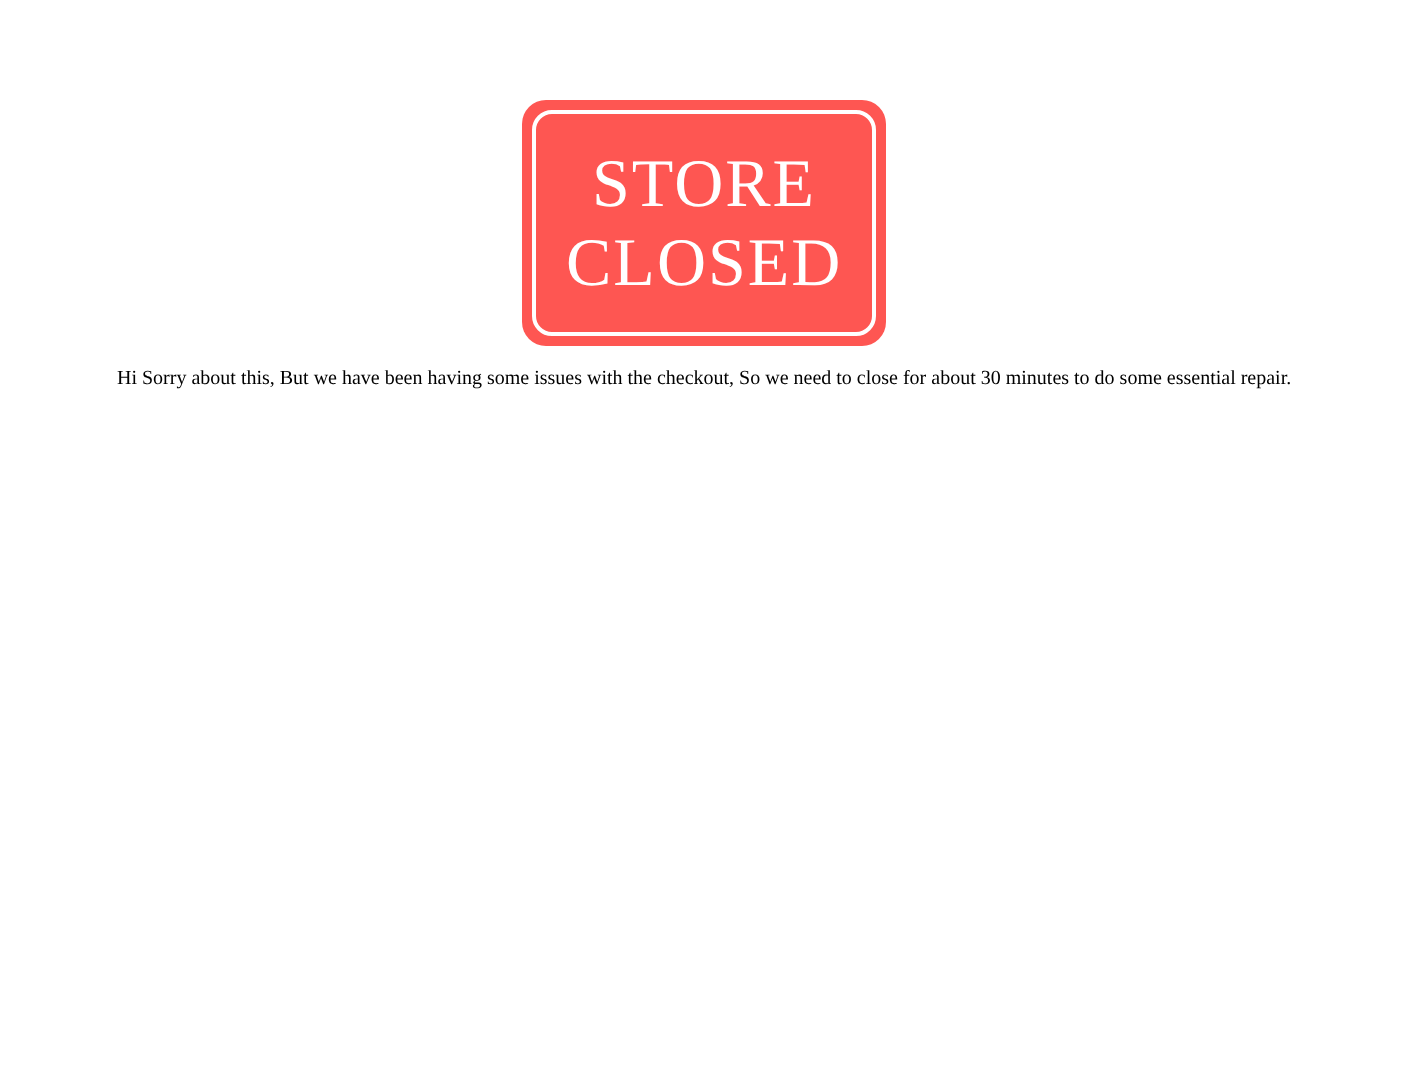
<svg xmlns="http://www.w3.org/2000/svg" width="1408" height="1072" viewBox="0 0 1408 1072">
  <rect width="100%" height="100%" fill="rgb(255,255,255)"/>
  <rect x="522" y="100" width="364" height="246" rx="24" fill="rgb(254,86,82)"/>
  <rect x="534" y="112" width="340" height="222" rx="18" fill="none" stroke="rgb(255,255,255)" stroke-width="4"/>
  <g font-family="Liberation Serif" font-size="68" letter-spacing="2" fill="rgb(255,255,255)">
    <text x="592" y="206">STORE</text>
    <text x="566" y="285">CLOSED</text>
  </g>
  <text x="117" y="384" font-family="Liberation Serif" font-size="20" fill="rgb(0,0,0)">Hi Sorry about this, But we have been having some issues with the checkout, So we need to close for about 30 minutes to do some essential repair.</text>
</svg>
